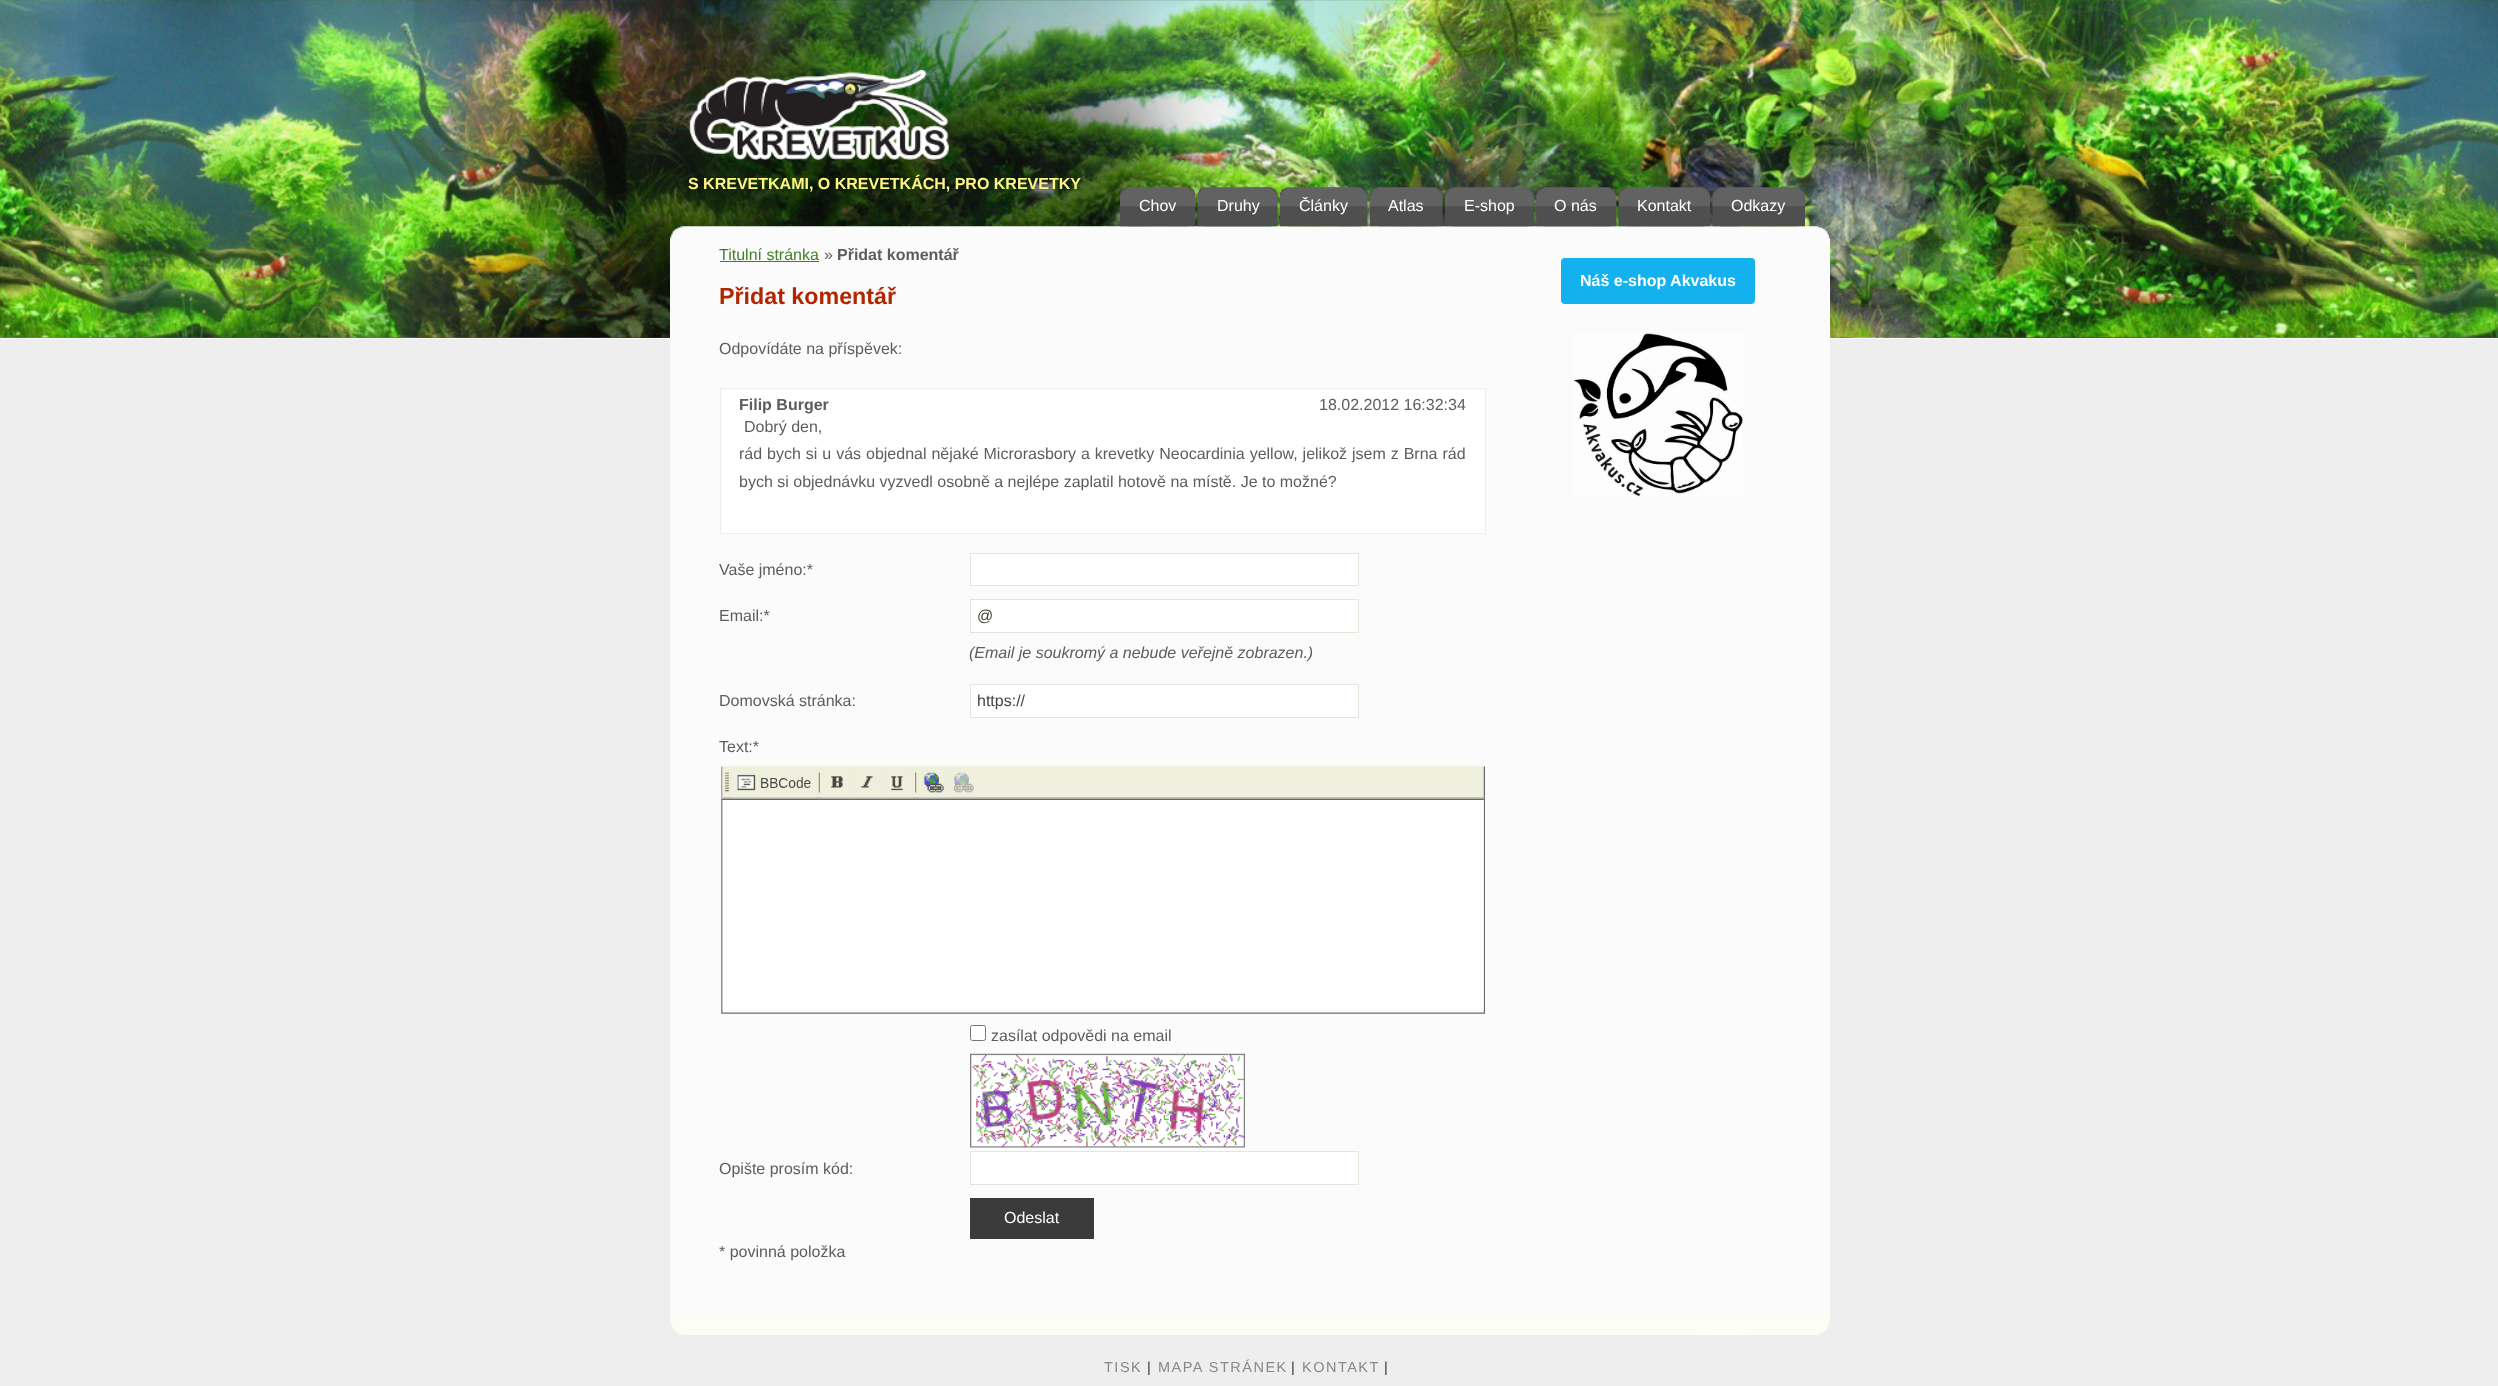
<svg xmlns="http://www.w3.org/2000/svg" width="2498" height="1386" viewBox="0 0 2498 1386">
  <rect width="100%" height="100%" fill="rgb(238,238,238)"/>
  <image x="0" y="0" width="2498" height="338" href="pic1.png"/>
  <rect x="0" y="338" width="2498" height="1" fill="rgb(255,255,255)"/>
  <image x="688" y="69" width="261" height="91" href="pic2.png"/>
  <text x="688" y="189" font-family="Liberation Sans" font-size="16" font-weight="bold" fill="rgb(255,245,130)">S KREVETKAMI, O KREVETKÁCH, PRO KREVETKY</text>
  <image x="670" y="226" width="1160" height="19" href="pic19.png"/>
  <image x="1120" y="187" width="69" height="40" href="pic3.png"/>
  <image x="1127" y="187" width="68" height="40" href="pic4.png"/>
  <text x="1139" y="211" font-family="Liberation Sans" font-size="16" fill="rgb(255,255,255)">Chov</text>
  <image x="1197" y="187" width="75" height="40" href="pic5.png"/>
  <image x="1205" y="187" width="73" height="40" href="pic6.png"/>
  <text x="1217" y="211" font-family="Liberation Sans" font-size="16" fill="rgb(255,255,255)">Druhy</text>
  <image x="1280" y="187" width="82" height="40" href="pic7.png"/>
  <image x="1287" y="187" width="81" height="40" href="pic8.png"/>
  <text x="1299" y="211" font-family="Liberation Sans" font-size="16" fill="rgb(255,255,255)">Články</text>
  <image x="1370" y="187" width="67" height="40" href="pic9.png"/>
  <image x="1377" y="187" width="66" height="40" href="pic10.png"/>
  <text x="1388" y="211" font-family="Liberation Sans" font-size="16" fill="rgb(255,255,255)">Atlas</text>
  <image x="1445" y="187" width="83" height="40" href="pic11.png"/>
  <image x="1452" y="187" width="82" height="40" href="pic12.png"/>
  <text x="1464" y="211" font-family="Liberation Sans" font-size="16" fill="rgb(255,255,255)">E-shop</text>
  <image x="1536" y="187" width="74" height="40" href="pic13.png"/>
  <image x="1543" y="187" width="74" height="40" href="pic14.png"/>
  <text x="1554" y="211" font-family="Liberation Sans" font-size="16" fill="rgb(255,255,255)">O nás</text>
  <image x="1618" y="187" width="86" height="40" href="pic15.png"/>
  <image x="1626" y="187" width="84" height="40" href="pic16.png"/>
  <text x="1637" y="211" font-family="Liberation Sans" font-size="16" fill="rgb(255,255,255)">Kontakt</text>
  <image x="1712" y="187" width="87" height="40" href="pic17.png"/>
  <image x="1720" y="187" width="85" height="40" href="pic18.png"/>
  <text x="1731" y="211" font-family="Liberation Sans" font-size="16" fill="rgb(255,255,255)">Odkazy</text>
  <rect x="670" y="245" width="1160" height="1071" fill="rgb(251,251,251)"/>
  <text x="719" y="260" font-family="Liberation Sans" font-size="16" fill="rgb(68,126,39)">Titulní stránka</text>
  <rect x="720" y="261" width="99" height="1" fill="rgb(68,126,39)"/>
  <text x="824" y="260" font-family="Liberation Sans" font-size="16" fill="rgb(93,93,93)">»</text>
  <text x="837" y="260" font-family="Liberation Sans" font-size="16" font-weight="bold" fill="rgb(93,93,93)">Přidat komentář</text>
  <text x="719" y="304" font-family="Liberation Sans" font-size="23.25" font-weight="bold" fill="rgb(177,38,0)">Přidat komentář</text>
  <text x="719" y="354" font-family="Liberation Sans" font-size="16" fill="rgb(93,93,93)">Odpovídáte na příspěvek:</text>
  <rect x="720.5" y="388.5" width="765" height="145" fill="rgb(255,255,255)" stroke="rgb(238,238,238)"/>
  <text x="739" y="410" font-family="Liberation Sans" font-size="16" font-weight="bold" fill="rgb(93,93,93)">Filip Burger</text>
  <g font-family="Liberation Sans" font-size="16" fill="rgb(93,93,93)">
    <text x="1319" y="410">18.02.2012 16:32:34</text>
    <text x="744" y="432">Dobrý den,</text>
    <text>
      <tspan x="739" y="459" word-spacing="0.5">rád bych si u vás objednal nějaké Microrasbory a krevetky Neocardinia yellow, jelikož jsem z Brna rád</tspan>
      <tspan x="739" y="487">bych si objednávku vyzvedl osobně a nejlépe zaplatil hotově na místě. Je to možné?</tspan>
    </text>
    <text x="719" y="575">Vaše jméno:*</text>
  </g>
  <rect x="970.5" y="553.5" width="388" height="32" fill="rgb(255,255,255)" stroke="rgb(229,229,219)"/>
  <text x="719" y="621" font-family="Liberation Sans" font-size="16" fill="rgb(93,93,93)">Email:*</text>
  <rect x="970.5" y="599.5" width="388" height="33" fill="rgb(255,255,255)" stroke="rgb(229,229,219)"/>
  <text x="977" y="621" font-family="Liberation Sans" font-size="16" fill="rgb(71,67,63)">@</text>
  <text x="969" y="658" font-family="Liberation Sans" font-size="16" font-style="italic" fill="rgb(93,93,93)">(Email je soukromý a nebude veřejně zobrazen.)</text>
  <text x="719" y="706" font-family="Liberation Sans" font-size="16" fill="rgb(93,93,93)">Domovská stránka:</text>
  <rect x="970.5" y="684.5" width="388" height="33" fill="rgb(255,255,255)" stroke="rgb(229,229,219)"/>
  <text x="977" y="706" font-family="Liberation Sans" font-size="16" fill="rgb(71,67,63)">https://</text>
  <text x="719" y="752" font-family="Liberation Sans" font-size="16" fill="rgb(93,93,93)">Text:*</text>
  <image x="721" y="766" width="764" height="248" href="pic20.png"/>
  <rect x="970.5" y="1025.5" width="15" height="15" rx="2" fill="rgb(255,255,255)" stroke="rgb(118,118,118)"/>
  <text x="991" y="1041" font-family="Liberation Sans" font-size="16" fill="rgb(93,93,93)">zasílat odpovědi na email</text>
  <image x="970" y="1053" width="275" height="95" href="pic21.png"/>
  <text x="719" y="1174" font-family="Liberation Sans" font-size="16" fill="rgb(93,93,93)">Opište prosím kód:</text>
  <rect x="970.5" y="1151.5" width="388" height="33" fill="rgb(255,255,255)" stroke="rgb(229,229,219)"/>
  <rect x="970" y="1198" width="124" height="41" fill="rgb(59,59,59)"/>
  <text x="1004" y="1223" font-family="Liberation Sans" font-size="16" fill="rgb(255,255,255)">Odeslat</text>
  <text x="719" y="1257" font-family="Liberation Sans" font-size="16" fill="rgb(93,93,93)">* povinná položka</text>
  <rect x="1562.5" y="259.5" width="191" height="43" rx="2.5" fill="rgb(20,177,239)" stroke="rgb(20,177,239)" stroke-width="3"/>
  <text x="1580" y="286" font-family="Liberation Sans" font-size="16" font-weight="bold" fill="rgb(255,255,255)">Náš e-shop Akvakus</text>
  <image x="1573" y="333" width="170" height="164" href="pic22.png"/>
  <image x="670" y="1316" width="1160" height="19" href="pic23.png"/>
  <text x="1104" y="1372" font-family="Liberation Sans" font-size="14.5" letter-spacing="1.5" fill="rgb(136,136,136)">TISK</text>
  <text x="1147" y="1372" font-family="Liberation Sans" font-size="14.5" letter-spacing="1.5" fill="rgb(51,51,51)">|</text>
  <text x="1158" y="1372" font-family="Liberation Sans" font-size="14.5" letter-spacing="1.5" fill="rgb(136,136,136)">MAPA STRÁNEK</text>
  <text x="1291" y="1372" font-family="Liberation Sans" font-size="14.5" letter-spacing="1.5" fill="rgb(51,51,51)">|</text>
  <text x="1302" y="1372" font-family="Liberation Sans" font-size="14.5" letter-spacing="1.5" fill="rgb(136,136,136)">KONTAKT</text>
  <text x="1384" y="1372" font-family="Liberation Sans" font-size="14.5" letter-spacing="1.5" fill="rgb(51,51,51)">|</text>
</svg>
